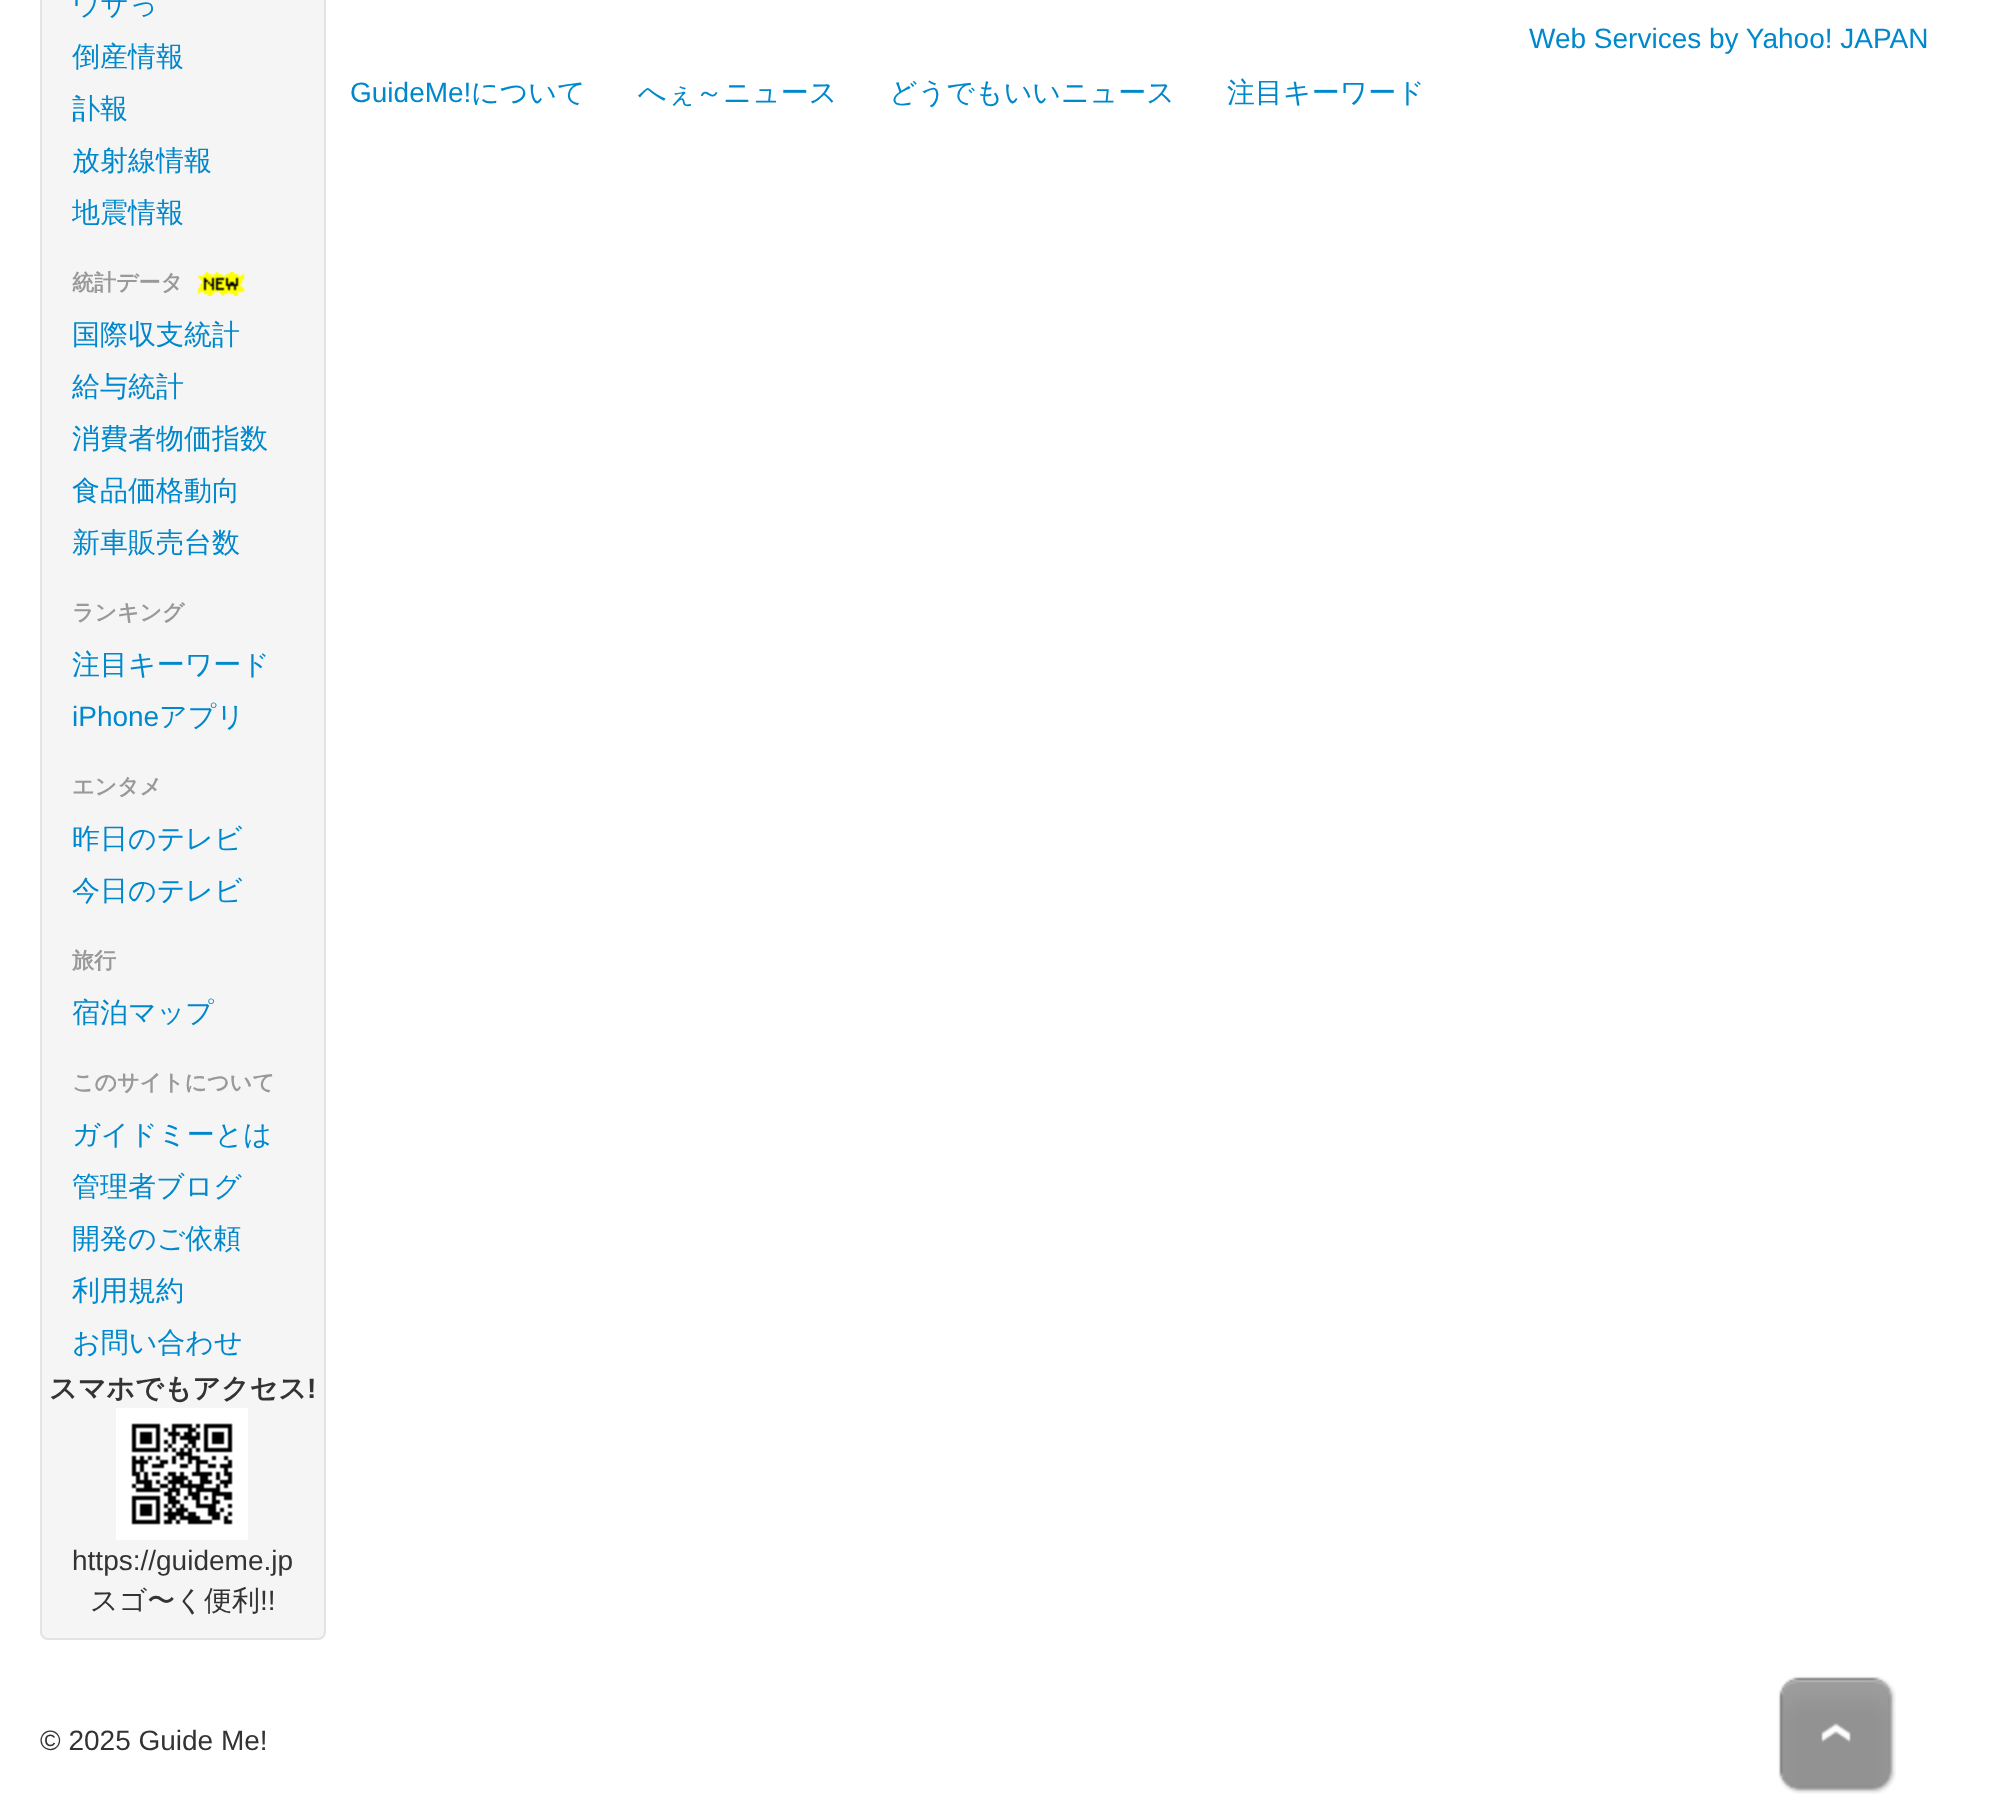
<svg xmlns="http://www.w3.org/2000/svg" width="1998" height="1806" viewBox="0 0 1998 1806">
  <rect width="100%" height="100%" fill="rgb(255,255,255)"/>
  <rect x="41" y="-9" width="284" height="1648" rx="7" fill="rgb(245,245,245)" stroke="rgb(227,227,227)" stroke-width="2"/>
  <g font-family="WenQuanYi Zen Hei" font-size="28" font-weight="500" fill="rgb(0,136,204)">
    <text>
      <tspan x="72" y="14">ウザっ</tspan>
      <tspan x="72" y="66">倒産情報</tspan>
      <tspan x="72" y="118">訃報</tspan>
      <tspan x="72" y="170">放射線情報</tspan>
      <tspan x="72" y="222">地震情報</tspan>
    </text>
  </g>
  <text x="72" y="290" font-family="WenQuanYi Zen Hei" font-size="22" font-weight="bold" fill="rgb(153,153,153)">統計データ</text>
  <image x="197" y="272" width="48" height="24" href="pic1.png"/>
  <g font-family="WenQuanYi Zen Hei" font-size="28" font-weight="500" fill="rgb(0,136,204)">
    <text>
      <tspan x="72" y="344">国際収支統計</tspan>
      <tspan x="72" y="396">給与統計</tspan>
      <tspan x="72" y="448">消費者物価指数</tspan>
      <tspan x="72" y="500">食品価格動向</tspan>
      <tspan x="72" y="552">新車販売台数</tspan>
    </text>
  </g>
  <text x="72" y="620" font-family="WenQuanYi Zen Hei" font-size="22" font-weight="bold" fill="rgb(153,153,153)">ランキング</text>
  <text x="72" y="674" font-family="WenQuanYi Zen Hei" font-size="28" font-weight="500" fill="rgb(0,136,204)">注目キーワード</text>
  <text x="72" y="726" font-family="Liberation Sans" font-size="28" fill="rgb(0,136,204)">iPhone</text>
  <text x="159" y="726" font-family="WenQuanYi Zen Hei" font-size="28" font-weight="500" fill="rgb(0,136,204)">アプリ</text>
  <text x="72" y="794" font-family="WenQuanYi Zen Hei" font-size="22" font-weight="bold" fill="rgb(153,153,153)">エンタメ</text>
  <g font-family="WenQuanYi Zen Hei" font-size="28" font-weight="500" fill="rgb(0,136,204)">
    <text>
      <tspan x="72" y="848">昨日のテレビ</tspan>
      <tspan x="72" y="900">今日のテレビ</tspan>
    </text>
  </g>
  <text x="72" y="968" font-family="WenQuanYi Zen Hei" font-size="22" font-weight="bold" fill="rgb(153,153,153)">旅行</text>
  <text x="72" y="1022" font-family="WenQuanYi Zen Hei" font-size="28" font-weight="500" fill="rgb(0,136,204)">宿泊マップ</text>
  <text x="72" y="1090" font-family="WenQuanYi Zen Hei" font-size="22" font-weight="bold" fill="rgb(153,153,153)">このサイトについて</text>
  <g font-family="WenQuanYi Zen Hei" font-size="28" font-weight="500" fill="rgb(0,136,204)">
    <text>
      <tspan x="72" y="1144">ガイドミーとは</tspan>
      <tspan x="72" y="1196">管理者ブログ</tspan>
      <tspan x="72" y="1248">開発のご依頼</tspan>
      <tspan x="72" y="1300">利用規約</tspan>
      <tspan x="72" y="1352">お問い合わせ</tspan>
    </text>
  </g>
  <text x="49" y="1398" font-family="WenQuanYi Zen Hei" font-size="28" font-weight="bold" fill="rgb(51,51,51)">スマホでもアクセス</text>
  <text x="307" y="1398" font-family="Liberation Sans" font-size="28" font-weight="bold" fill="rgb(51,51,51)">!</text>
  <image x="116" y="1408" width="132" height="132" href="pic2.png"/>
  <text x="72" y="1570" font-family="Liberation Sans" font-size="28" fill="rgb(51,51,51)">https://guideme.jp</text>
  <text x="90" y="1610" font-family="WenQuanYi Zen Hei" font-size="28" font-weight="500" fill="rgb(51,51,51)">スゴ〜く便利</text>
  <text x="260" y="1610" font-family="Liberation Sans" font-size="28" fill="rgb(51,51,51)">!!</text>
  <g font-family="Liberation Sans" font-size="28" fill="rgb(0,136,204)">
    <text x="1529" y="48">Web Services by Yahoo! JAPAN</text>
    <text x="350" y="102">GuideMe!</text>
  </g>
  <g font-family="WenQuanYi Zen Hei" font-size="28" font-weight="500" fill="rgb(0,136,204)">
    <text x="471" y="102">について</text>
    <text x="638" y="102">へぇ～ニュース</text>
    <text x="889" y="102">どうでもいいニュース</text>
    <text x="1227" y="102">注目キーワード</text>
  </g>
  <text x="40" y="1750" font-family="Liberation Sans" font-size="28" fill="rgb(51,51,51)">© 2025 Guide Me!</text>
  <image x="1778" y="1676" width="118" height="118" href="pic3.png"/>
</svg>
